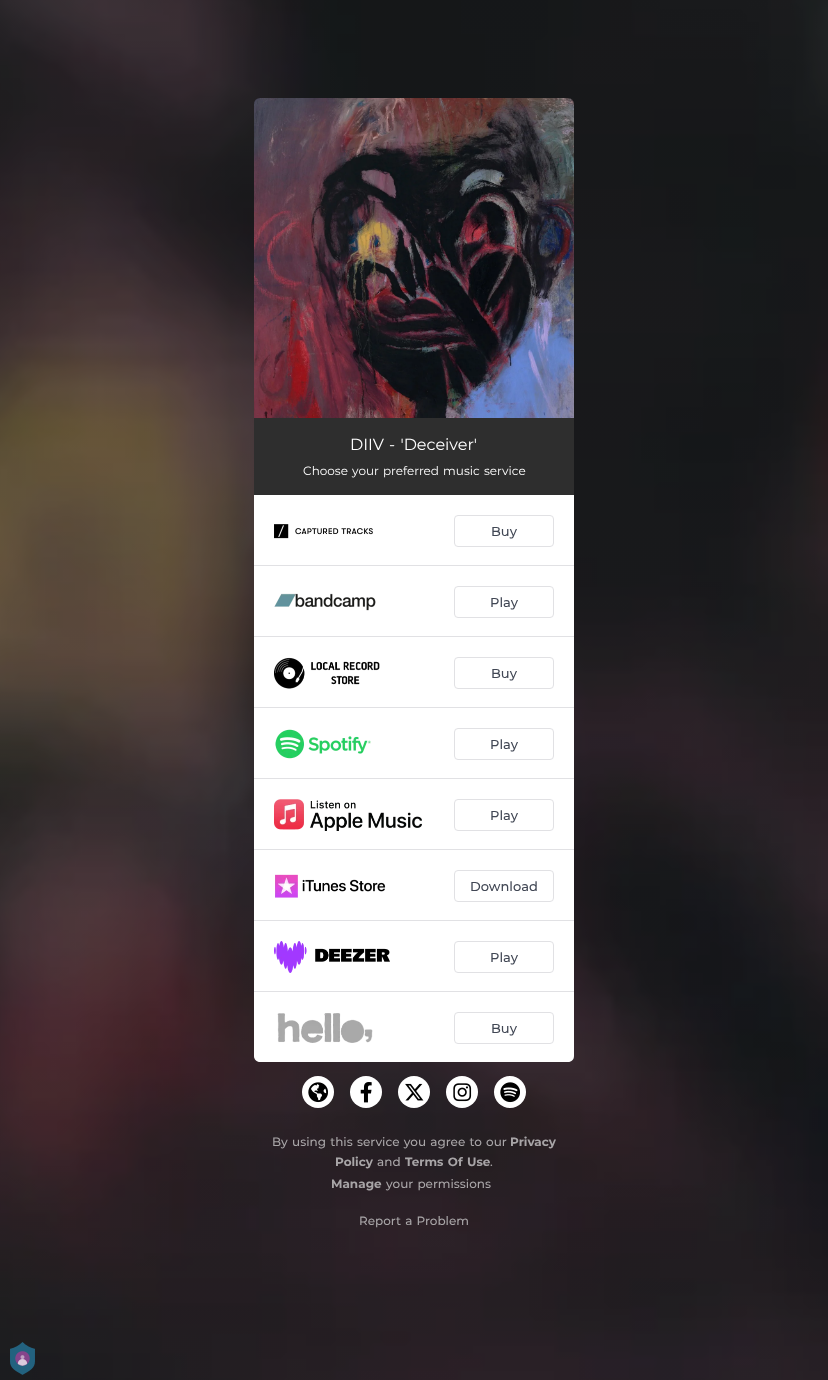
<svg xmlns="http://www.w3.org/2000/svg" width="828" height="1380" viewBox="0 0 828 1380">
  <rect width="100%" height="100%" fill="rgb(255,255,255)"/>
  <image x="0" y="0" width="828" height="1380" href="pic1.png"/>
  <image x="254" y="98" width="320" height="320" href="pic2.png"/>
  <rect x="254" y="418" width="320" height="77" fill="rgb(46,46,46)"/>
  <text x="350" y="450" word-spacing="1" font-family="Montserrat" font-size="16" fill="rgb(255,255,255)">DIIV - 'Deceiver'</text>
  <text x="303" y="475" word-spacing="1" font-family="Montserrat" font-size="12" fill="rgb(255,255,255)">Choose your preferred music service</text>
  <path d="M254 495H574V1056C574 1059.5 571.5 1062 568 1062H260C256.5 1062 254 1059.5 254 1056Z" fill="rgb(255,255,255)"/>
  <rect x="254" y="565" width="320" height="1" fill="rgb(225,225,228)"/>
  <image x="274" y="524" width="99" height="15" href="pic3.png"/>
  <rect x="454.5" y="515.5" width="99" height="31" rx="3.5" fill="none" stroke="rgb(225,225,228)"/>
  <text x="491" y="536" font-family="Montserrat" font-size="13" font-weight="500" fill="rgb(65,71,84)">Buy</text>
  <rect x="254" y="636" width="320" height="1" fill="rgb(225,225,228)"/>
  <image x="274" y="593" width="102" height="18" href="pic4.png"/>
  <rect x="454.5" y="586.5" width="99" height="31" rx="3.5" fill="none" stroke="rgb(225,225,228)"/>
  <text x="490" y="607" font-family="Montserrat" font-size="13" font-weight="500" fill="rgb(65,71,84)">Play</text>
  <rect x="254" y="707" width="320" height="1" fill="rgb(225,225,228)"/>
  <image x="274" y="657" width="106" height="32" href="pic5.png"/>
  <rect x="454.5" y="657.5" width="99" height="31" rx="3.5" fill="none" stroke="rgb(225,225,228)"/>
  <text x="491" y="678" font-family="Montserrat" font-size="13" font-weight="500" fill="rgb(65,71,84)">Buy</text>
  <rect x="254" y="778" width="320" height="1" fill="rgb(225,225,228)"/>
  <image x="275" y="729" width="96" height="30" href="pic6.png"/>
  <rect x="454.5" y="728.5" width="99" height="31" rx="3.5" fill="none" stroke="rgb(225,225,228)"/>
  <text x="490" y="749" font-family="Montserrat" font-size="13" font-weight="500" fill="rgb(65,71,84)">Play</text>
  <rect x="254" y="849" width="320" height="1" fill="rgb(225,225,228)"/>
  <image x="274" y="799" width="148" height="32" href="pic7.png"/>
  <rect x="454.5" y="799.5" width="99" height="31" rx="3.5" fill="none" stroke="rgb(225,225,228)"/>
  <text x="490" y="820" font-family="Montserrat" font-size="13" font-weight="500" fill="rgb(65,71,84)">Play</text>
  <rect x="254" y="920" width="320" height="1" fill="rgb(225,225,228)"/>
  <image x="275" y="874" width="111" height="24" href="pic8.png"/>
  <rect x="454.5" y="870.5" width="99" height="31" rx="3.5" fill="none" stroke="rgb(225,225,228)"/>
  <text x="470" y="891" font-family="Montserrat" font-size="13" font-weight="500" fill="rgb(65,71,84)">Download</text>
  <rect x="254" y="991" width="320" height="1" fill="rgb(225,225,228)"/>
  <image x="274" y="941" width="116" height="32" href="pic9.png"/>
  <rect x="454.5" y="941.5" width="99" height="31" rx="3.5" fill="none" stroke="rgb(225,225,228)"/>
  <text x="490" y="962" font-family="Montserrat" font-size="13" font-weight="500" fill="rgb(65,71,84)">Play</text>
  <image x="277" y="1013" width="96" height="30" href="pic10.png"/>
  <rect x="454.5" y="1012.5" width="99" height="31" rx="3.5" fill="none" stroke="rgb(225,225,228)"/>
  <text x="491" y="1033" font-family="Montserrat" font-size="13" font-weight="500" fill="rgb(65,71,84)">Buy</text>
  <circle cx="318" cy="1092" r="16" fill="rgb(255,255,255)"/>
  <image x="308" y="1082" width="20" height="21" href="pic11.png"/>
  <circle cx="366" cy="1092" r="16" fill="rgb(255,255,255)"/>
  <image x="360" y="1082" width="12" height="21" href="pic12.png"/>
  <circle cx="414" cy="1092" r="16" fill="rgb(255,255,255)"/>
  <image x="405" y="1083" width="19" height="18" href="pic13.png"/>
  <circle cx="462" cy="1092" r="16" fill="rgb(255,255,255)"/>
  <image x="453" y="1083" width="19" height="19" href="pic14.png"/>
  <circle cx="510" cy="1092" r="16" fill="rgb(255,255,255)"/>
  <image x="500" y="1082" width="20" height="21" href="pic15.png"/>
  <text x="272" y="1146" word-spacing="1" font-family="Montserrat" font-size="12" font-weight="500" fill="rgb(168,165,167)">By using this service you agree to our</text>
  <g font-family="Montserrat" font-size="12" font-weight="bold" fill="rgb(168,165,167)">
    <text x="510" y="1146">Privacy</text>
    <text x="335" y="1166">Policy</text>
  </g>
  <text x="377" y="1166" font-family="Montserrat" font-size="12" font-weight="500" fill="rgb(168,165,167)">and</text>
  <text x="405" y="1166" word-spacing="1" font-family="Montserrat" font-size="12" font-weight="bold" fill="rgb(168,165,167)">Terms Of Use</text>
  <text x="490" y="1166" font-family="Montserrat" font-size="12" font-weight="500" fill="rgb(168,165,167)">.</text>
  <text x="331" y="1188" font-family="Montserrat" font-size="12" font-weight="bold" fill="rgb(168,165,167)">Manage</text>
  <g font-family="Montserrat" font-size="12" font-weight="500" fill="rgb(168,165,167)">
    <text x="386" y="1188" word-spacing="1">your permissions</text>
    <text x="359" y="1225" word-spacing="1">Report a Problem</text>
  </g>
  <image x="10" y="1342" width="25" height="33" href="pic16.png"/>
</svg>
